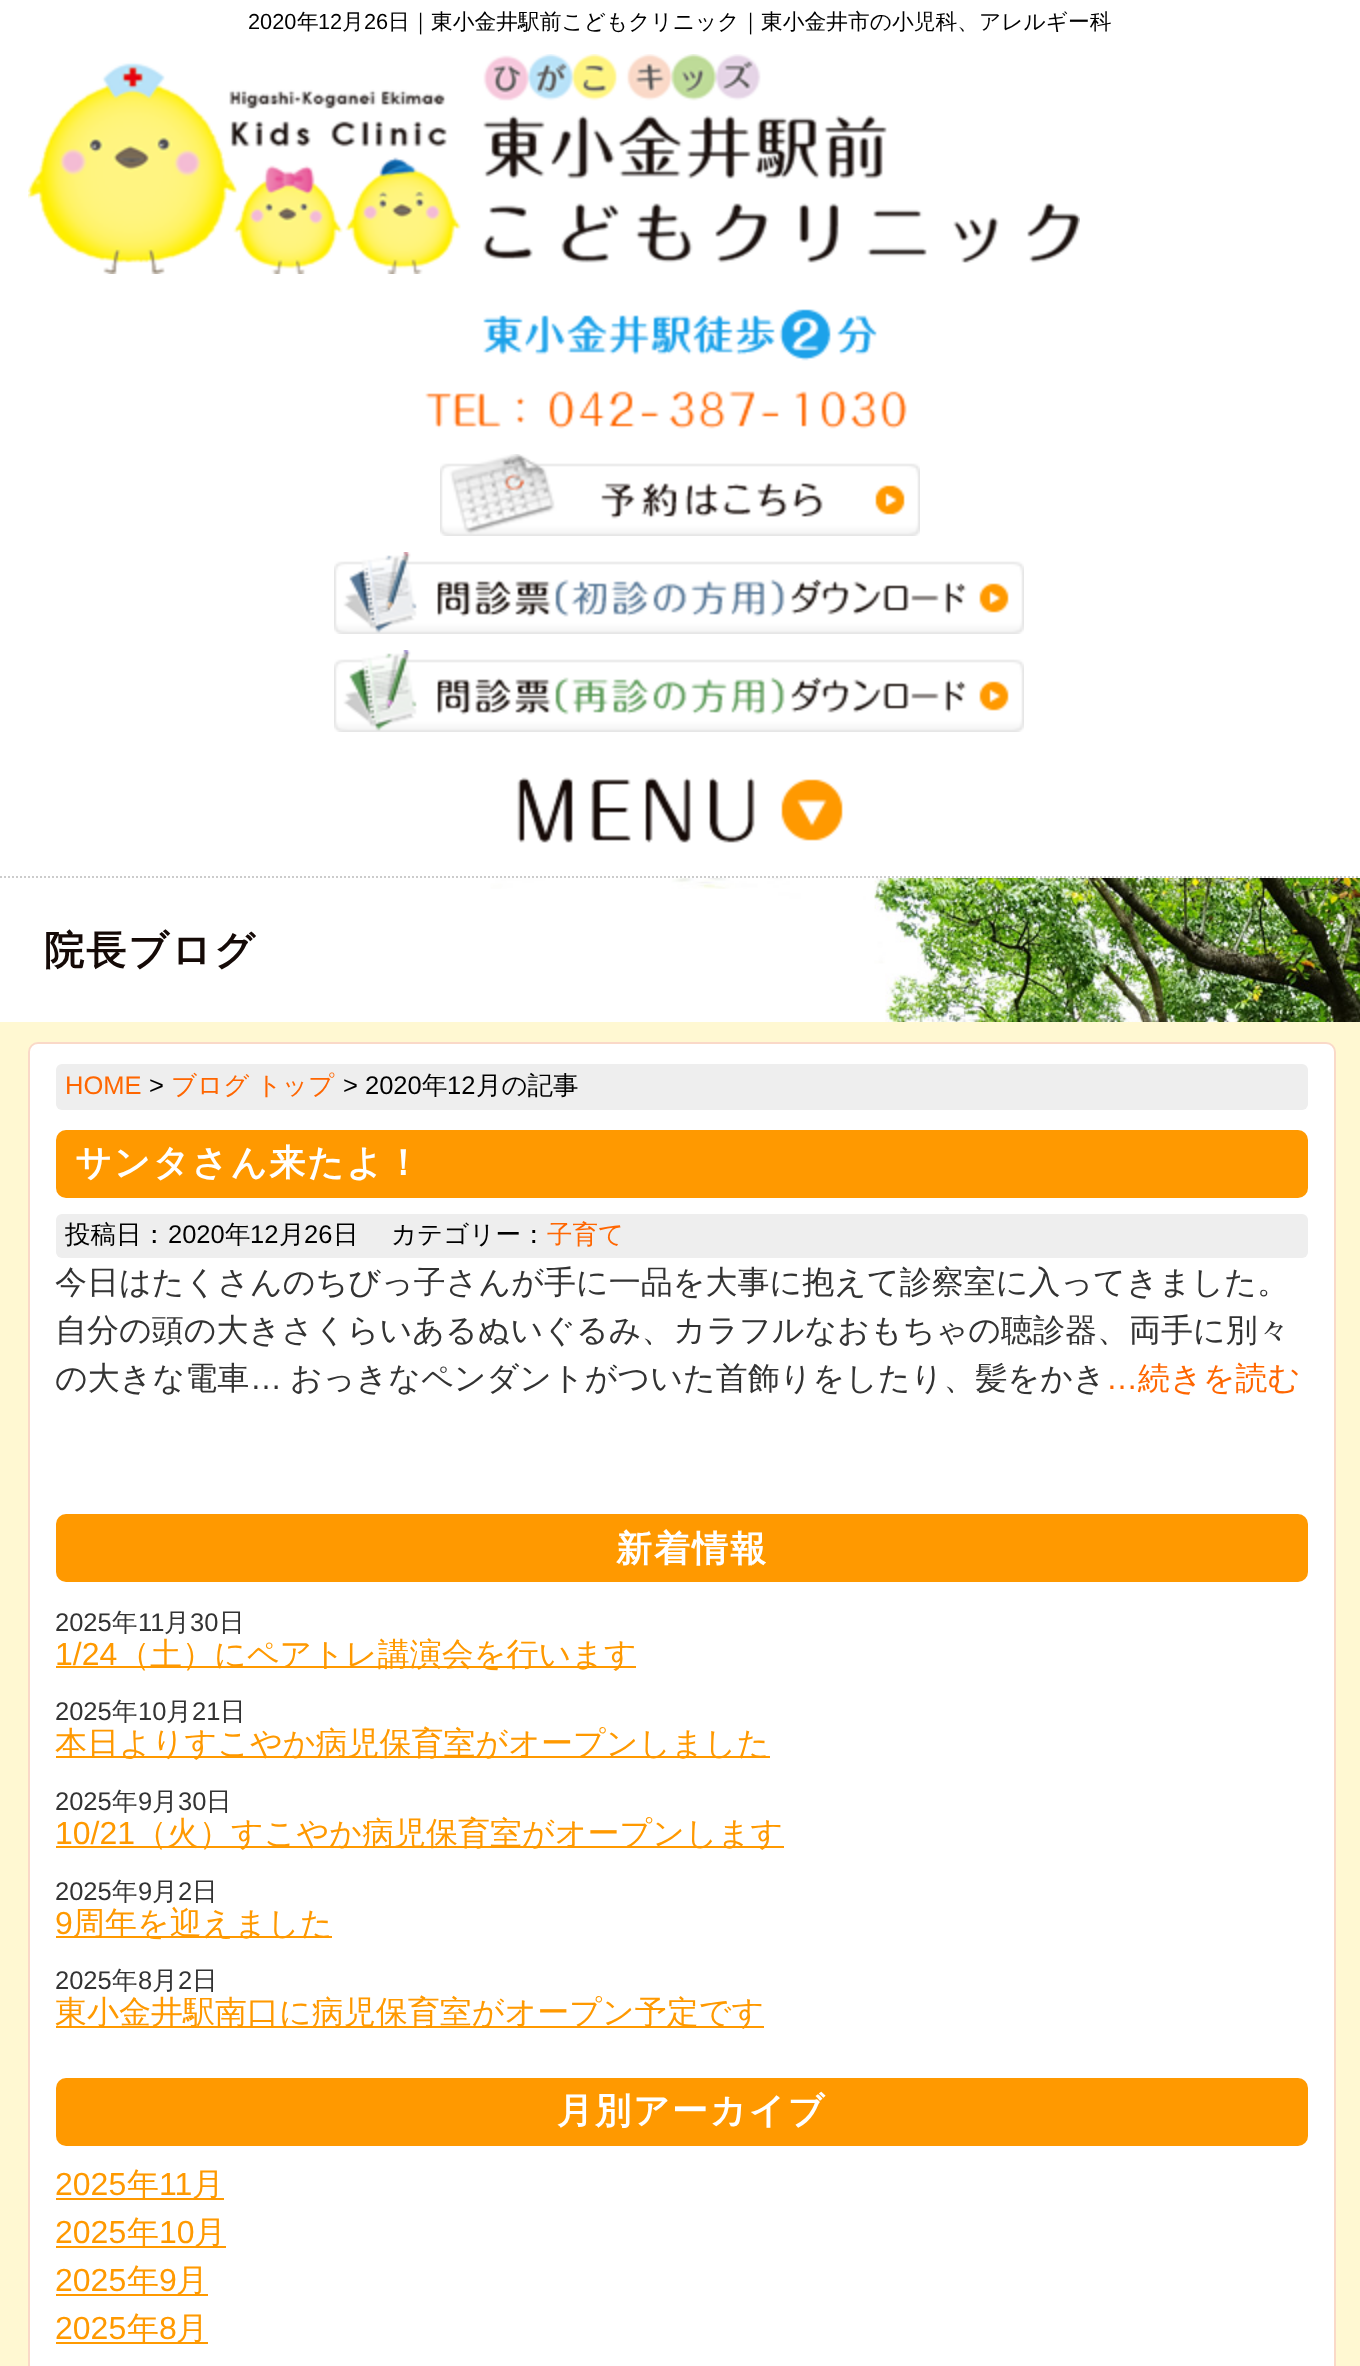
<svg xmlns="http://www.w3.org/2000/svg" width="1360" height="2366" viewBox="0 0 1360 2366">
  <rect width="100%" height="100%" fill="rgb(255,255,255)"/>
  <text x="248" y="29" font-family="Liberation Sans" font-size="21.75" fill="rgb(0,0,0)">2020</text>
  <text x="297" y="29" font-family="WenQuanYi Zen Hei" font-size="21.75" font-weight="500" fill="rgb(0,0,0)">年</text>
  <text x="318" y="29" font-family="Liberation Sans" font-size="21.75" fill="rgb(0,0,0)">12</text>
  <text x="342" y="29" font-family="WenQuanYi Zen Hei" font-size="21.75" font-weight="500" fill="rgb(0,0,0)">月</text>
  <text x="364" y="29" font-family="Liberation Sans" font-size="21.75" fill="rgb(0,0,0)">26</text>
  <text x="388" y="29" font-family="WenQuanYi Zen Hei" font-size="21.75" font-weight="500" fill="rgb(0,0,0)">日｜東小金井駅前こどもクリニック｜東小金井市の小児科、アレルギー科</text>
  <image x="28" y="54" width="1052" height="220" href="pic1.png"/>
  <image x="483" y="309" width="394" height="52" href="pic2.png"/>
  <image x="425" y="391" width="482" height="38" href="pic3.png"/>
  <image x="440" y="454" width="480" height="82" href="pic4.png"/>
  <image x="334" y="552" width="690" height="82" href="pic5.png"/>
  <image x="334" y="650" width="690" height="82" href="pic6.png"/>
  <path d="M0 877H1360" fill="none" stroke="rgb(204,204,204)" stroke-width="2" stroke-dasharray="2 2"/>
  <image x="517" y="777" width="326" height="66" href="pic7.png"/>
  <image x="0" y="878" width="1360" height="144" href="pic8.png"/>
  <text x="44" y="964" font-family="WenQuanYi Zen Hei" font-size="40" font-weight="bold" letter-spacing="2" fill="rgb(21,10,7)">院長ブログ</text>
  <rect x="0" y="1022" width="1360" height="1344" fill="rgb(255,248,210)"/>
  <rect x="29" y="1043" width="1306" height="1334" rx="9" fill="rgb(255,255,255)" stroke="rgb(250,217,200)" stroke-width="2"/>
  <rect x="56" y="1064" width="1252" height="46" rx="6" fill="rgb(238,238,238)"/>
  <text x="65" y="1094" font-family="Liberation Sans" font-size="25.5" fill="rgb(255,102,0)">HOME</text>
  <text x="149" y="1094" font-family="Liberation Sans" font-size="25.5" fill="rgb(0,0,0)">&gt;</text>
  <text x="171" y="1094" word-spacing="-1" font-family="WenQuanYi Zen Hei" font-size="25.5" font-weight="500" fill="rgb(255,102,0)">ブログ トップ</text>
  <text x="343" y="1094" font-family="Liberation Sans" font-size="25.5" fill="rgb(0,0,0)">&gt; 2020</text>
  <text x="422" y="1094" font-family="WenQuanYi Zen Hei" font-size="25.5" font-weight="500" fill="rgb(0,0,0)">年</text>
  <text x="447" y="1094" font-family="Liberation Sans" font-size="25.5" fill="rgb(0,0,0)">12</text>
  <text x="476" y="1094" font-family="WenQuanYi Zen Hei" font-size="25.5" font-weight="500" fill="rgb(0,0,0)">月の記事</text>
  <rect x="56" y="1130" width="1252" height="68" rx="10" fill="rgb(255,153,0)"/>
  <text x="75" y="1175" font-family="WenQuanYi Zen Hei" font-size="36" font-weight="bold" letter-spacing="2" fill="rgb(255,255,255)">サンタさん来たよ！</text>
  <rect x="56" y="1214" width="1252" height="44" rx="6" fill="rgb(238,238,238)"/>
  <text x="65" y="1243" font-family="WenQuanYi Zen Hei" font-size="25.5" font-weight="500" fill="rgb(0,0,0)">投稿日：</text>
  <text x="168" y="1243" font-family="Liberation Sans" font-size="25.5" fill="rgb(0,0,0)">2020</text>
  <text x="225" y="1243" font-family="WenQuanYi Zen Hei" font-size="25.5" font-weight="500" fill="rgb(0,0,0)">年</text>
  <text x="250" y="1243" font-family="Liberation Sans" font-size="25.5" fill="rgb(0,0,0)">12</text>
  <text x="279" y="1243" font-family="WenQuanYi Zen Hei" font-size="25.5" font-weight="500" fill="rgb(0,0,0)">月</text>
  <text x="304" y="1243" font-family="Liberation Sans" font-size="25.5" fill="rgb(0,0,0)">26</text>
  <g font-family="WenQuanYi Zen Hei" font-size="25.5" font-weight="500" fill="rgb(0,0,0)">
    <text x="333" y="1243">日</text>
    <text x="391" y="1243">カテゴリー：</text>
  </g>
  <text x="547" y="1243" font-family="WenQuanYi Zen Hei" font-size="25.5" font-weight="500" fill="rgb(255,102,0)">子育て</text>
  <g font-family="WenQuanYi Zen Hei" font-size="32" font-weight="500" fill="rgb(51,51,51)">
    <text>
      <tspan x="55" y="1293">今日はたくさんのちびっ子さんが手に一品を大事に抱えて診察室に入ってきました。</tspan>
      <tspan x="55" y="1341">自分の頭の大きさくらいあるぬいぐるみ、カラフルなおもちゃの聴診器、両手に別々</tspan>
      <tspan x="55" y="1389">の大きな電車</tspan>
    </text>
  </g>
  <text x="250" y="1389" font-family="Liberation Sans" font-size="32" fill="rgb(51,51,51)">…</text>
  <text x="290" y="1389" font-family="WenQuanYi Zen Hei" font-size="32" font-weight="500" fill="rgb(51,51,51)">おっきなペンダントがついた首飾りをしたり、髪をかき</text>
  <text x="1106" y="1389" font-family="Liberation Sans" font-size="32" fill="rgb(255,102,0)">…</text>
  <text x="1138" y="1389" font-family="WenQuanYi Zen Hei" font-size="32" font-weight="500" fill="rgb(255,102,0)">続きを読む</text>
  <rect x="56" y="1514" width="1252" height="68" rx="10" fill="rgb(255,153,0)"/>
  <text x="616" y="1561" font-family="WenQuanYi Zen Hei" font-size="36" font-weight="bold" letter-spacing="2" fill="rgb(255,255,255)">新着情報</text>
  <text x="55" y="1631" font-family="Liberation Sans" font-size="25.5" fill="rgb(51,51,51)">2025</text>
  <text x="112" y="1631" font-family="WenQuanYi Zen Hei" font-size="25.5" font-weight="500" fill="rgb(51,51,51)">年</text>
  <text x="138" y="1631" font-family="Liberation Sans" font-size="25.5" fill="rgb(51,51,51)">11</text>
  <text x="164" y="1631" font-family="WenQuanYi Zen Hei" font-size="25.5" font-weight="500" fill="rgb(51,51,51)">月</text>
  <text x="190" y="1631" font-family="Liberation Sans" font-size="25.5" fill="rgb(51,51,51)">30</text>
  <text x="219" y="1631" font-family="WenQuanYi Zen Hei" font-size="25.5" font-weight="500" fill="rgb(51,51,51)">日</text>
  <text x="55" y="1665" font-family="Liberation Sans" font-size="32" fill="rgb(255,153,0)">1/24</text>
  <rect x="56" y="1666" width="580" height="2" fill="rgb(255,153,0)"/>
  <text x="118" y="1665" font-family="WenQuanYi Zen Hei" font-size="32" font-weight="500" fill="rgb(255,153,0)">（土）にペアトレ講演会を行います</text>
  <text x="55" y="1720" font-family="Liberation Sans" font-size="25.5" fill="rgb(51,51,51)">2025</text>
  <text x="112" y="1720" font-family="WenQuanYi Zen Hei" font-size="25.5" font-weight="500" fill="rgb(51,51,51)">年</text>
  <text x="138" y="1720" font-family="Liberation Sans" font-size="25.5" fill="rgb(51,51,51)">10</text>
  <text x="166" y="1720" font-family="WenQuanYi Zen Hei" font-size="25.5" font-weight="500" fill="rgb(51,51,51)">月</text>
  <text x="192" y="1720" font-family="Liberation Sans" font-size="25.5" fill="rgb(51,51,51)">21</text>
  <text x="220" y="1720" font-family="WenQuanYi Zen Hei" font-size="25.5" font-weight="500" fill="rgb(51,51,51)">日</text>
  <rect x="56" y="1756" width="714" height="2" fill="rgb(255,153,0)"/>
  <text x="55" y="1754" font-family="WenQuanYi Zen Hei" font-size="32" font-weight="500" fill="rgb(255,153,0)">本日よりすこやか病児保育室がオープンしました</text>
  <text x="55" y="1810" font-family="Liberation Sans" font-size="25.5" fill="rgb(51,51,51)">2025</text>
  <text x="112" y="1810" font-family="WenQuanYi Zen Hei" font-size="25.5" font-weight="500" fill="rgb(51,51,51)">年</text>
  <text x="138" y="1810" font-family="Liberation Sans" font-size="25.5" fill="rgb(51,51,51)">9</text>
  <text x="152" y="1810" font-family="WenQuanYi Zen Hei" font-size="25.5" font-weight="500" fill="rgb(51,51,51)">月</text>
  <text x="178" y="1810" font-family="Liberation Sans" font-size="25.5" fill="rgb(51,51,51)">30</text>
  <text x="206" y="1810" font-family="WenQuanYi Zen Hei" font-size="25.5" font-weight="500" fill="rgb(51,51,51)">日</text>
  <text x="55" y="1844" font-family="Liberation Sans" font-size="32" fill="rgb(255,153,0)">10/21</text>
  <rect x="56" y="1846" width="728" height="2" fill="rgb(255,153,0)"/>
  <text x="135" y="1844" font-family="WenQuanYi Zen Hei" font-size="32" font-weight="500" fill="rgb(255,153,0)">（火）すこやか病児保育室がオープンします</text>
  <text x="55" y="1900" font-family="Liberation Sans" font-size="25.5" fill="rgb(51,51,51)">2025</text>
  <text x="112" y="1900" font-family="WenQuanYi Zen Hei" font-size="25.5" font-weight="500" fill="rgb(51,51,51)">年</text>
  <text x="138" y="1900" font-family="Liberation Sans" font-size="25.5" fill="rgb(51,51,51)">9</text>
  <text x="152" y="1900" font-family="WenQuanYi Zen Hei" font-size="25.5" font-weight="500" fill="rgb(51,51,51)">月</text>
  <text x="178" y="1900" font-family="Liberation Sans" font-size="25.5" fill="rgb(51,51,51)">2</text>
  <text x="192" y="1900" font-family="WenQuanYi Zen Hei" font-size="25.5" font-weight="500" fill="rgb(51,51,51)">日</text>
  <text x="55" y="1934" font-family="Liberation Sans" font-size="32" fill="rgb(255,153,0)">9</text>
  <rect x="56" y="1936" width="276" height="2" fill="rgb(255,153,0)"/>
  <text x="73" y="1934" font-family="WenQuanYi Zen Hei" font-size="32" font-weight="500" fill="rgb(255,153,0)">周年を迎えました</text>
  <text x="55" y="1989" font-family="Liberation Sans" font-size="25.5" fill="rgb(51,51,51)">2025</text>
  <text x="112" y="1989" font-family="WenQuanYi Zen Hei" font-size="25.5" font-weight="500" fill="rgb(51,51,51)">年</text>
  <text x="138" y="1989" font-family="Liberation Sans" font-size="25.5" fill="rgb(51,51,51)">8</text>
  <text x="152" y="1989" font-family="WenQuanYi Zen Hei" font-size="25.5" font-weight="500" fill="rgb(51,51,51)">月</text>
  <text x="178" y="1989" font-family="Liberation Sans" font-size="25.5" fill="rgb(51,51,51)">2</text>
  <text x="192" y="1989" font-family="WenQuanYi Zen Hei" font-size="25.5" font-weight="500" fill="rgb(51,51,51)">日</text>
  <rect x="56" y="2026" width="708" height="2" fill="rgb(255,153,0)"/>
  <text x="55" y="2023" font-family="WenQuanYi Zen Hei" font-size="32" font-weight="500" fill="rgb(255,153,0)">東小金井駅南口に病児保育室がオープン予定です</text>
  <rect x="56" y="2078" width="1252" height="68" rx="10" fill="rgb(255,153,0)"/>
  <text x="557" y="2123" font-family="WenQuanYi Zen Hei" font-size="36" font-weight="bold" letter-spacing="2" fill="rgb(255,255,255)">月別アーカイブ</text>
  <text x="55" y="2195" font-family="Liberation Sans" font-size="32" fill="rgb(255,153,0)">2025</text>
  <rect x="56" y="2198" width="168" height="2" fill="rgb(255,153,0)"/>
  <text x="127" y="2195" font-family="WenQuanYi Zen Hei" font-size="32" font-weight="500" fill="rgb(255,153,0)">年</text>
  <text x="159" y="2195" font-family="Liberation Sans" font-size="32" fill="rgb(255,153,0)">11</text>
  <text x="192" y="2195" font-family="WenQuanYi Zen Hei" font-size="32" font-weight="500" fill="rgb(255,153,0)">月</text>
  <text x="55" y="2243" font-family="Liberation Sans" font-size="32" fill="rgb(255,153,0)">2025</text>
  <rect x="56" y="2246" width="170" height="2" fill="rgb(255,153,0)"/>
  <text x="127" y="2243" font-family="WenQuanYi Zen Hei" font-size="32" font-weight="500" fill="rgb(255,153,0)">年</text>
  <text x="159" y="2243" font-family="Liberation Sans" font-size="32" fill="rgb(255,153,0)">10</text>
  <text x="194" y="2243" font-family="WenQuanYi Zen Hei" font-size="32" font-weight="500" fill="rgb(255,153,0)">月</text>
  <text x="55" y="2291" font-family="Liberation Sans" font-size="32" fill="rgb(255,153,0)">2025</text>
  <rect x="56" y="2294" width="152" height="2" fill="rgb(255,153,0)"/>
  <text x="127" y="2291" font-family="WenQuanYi Zen Hei" font-size="32" font-weight="500" fill="rgb(255,153,0)">年</text>
  <text x="159" y="2291" font-family="Liberation Sans" font-size="32" fill="rgb(255,153,0)">9</text>
  <text x="176" y="2291" font-family="WenQuanYi Zen Hei" font-size="32" font-weight="500" fill="rgb(255,153,0)">月</text>
  <text x="55" y="2339" font-family="Liberation Sans" font-size="32" fill="rgb(255,153,0)">2025</text>
  <rect x="56" y="2342" width="152" height="2" fill="rgb(255,153,0)"/>
  <text x="127" y="2339" font-family="WenQuanYi Zen Hei" font-size="32" font-weight="500" fill="rgb(255,153,0)">年</text>
  <text x="159" y="2339" font-family="Liberation Sans" font-size="32" fill="rgb(255,153,0)">8</text>
  <text x="176" y="2339" font-family="WenQuanYi Zen Hei" font-size="32" font-weight="500" fill="rgb(255,153,0)">月</text>
</svg>
